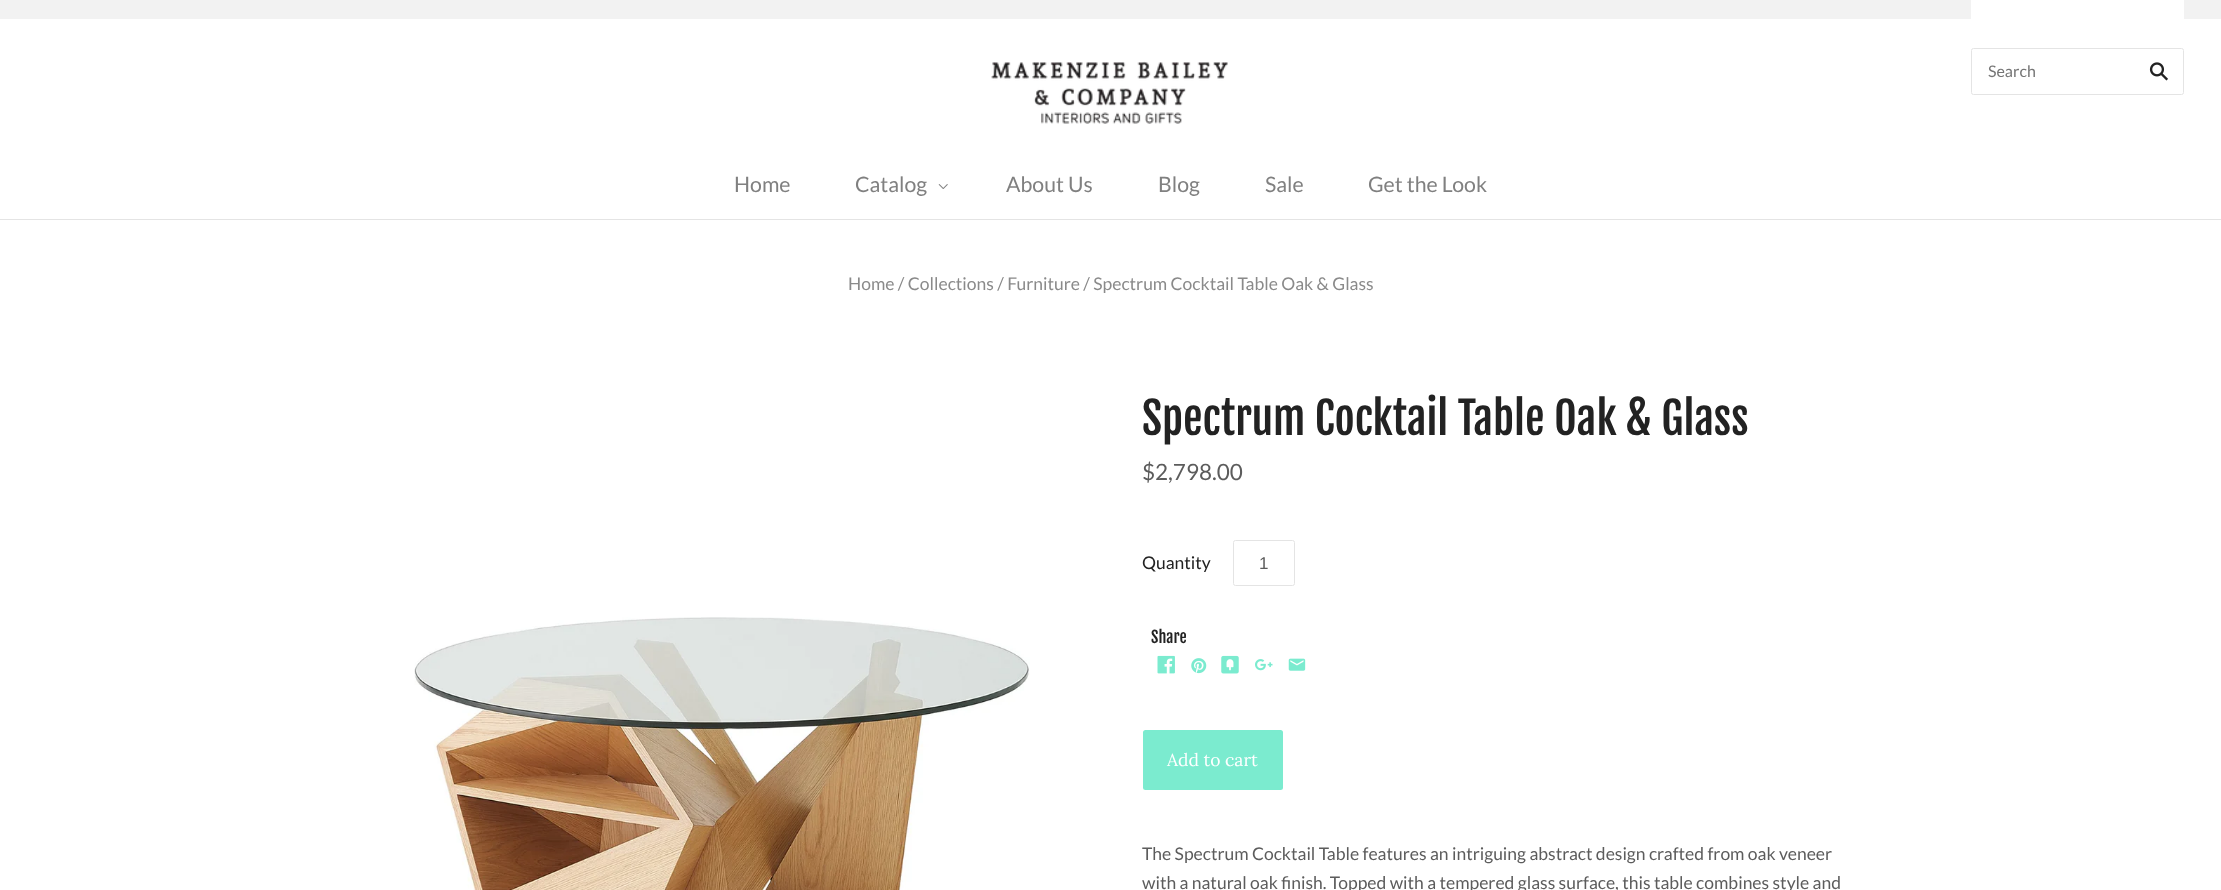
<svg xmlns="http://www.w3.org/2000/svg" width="2221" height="890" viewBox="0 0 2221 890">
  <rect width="100%" height="100%" fill="rgb(255,255,255)"/>
  <image x="991" y="61" width="237" height="63" href="pic1.png"/>
  <rect x="0" y="0" width="2221" height="19" fill="rgb(242,242,242)"/>
  <rect x="1971" y="0" width="213" height="19" fill="rgb(255,255,255)"/>
  <rect x="1971.5" y="48.5" width="212" height="46" rx="2" fill="none" stroke="rgb(228,228,228)"/>
  <text x="1988" y="77" font-family="Lato" font-size="16" fill="rgb(117,117,117)">Search</text>
  <image x="2149" y="62" width="19" height="19" href="pic2.png"/>
  <rect x="0" y="219" width="2221" height="1" fill="rgb(228,228,228)"/>
  <g font-family="Lato" font-size="21.25" fill="rgb(128,128,128)">
    <text x="734" y="192">Home</text>
    <text x="855" y="192">Catalog</text>
  </g>
  <image x="938" y="184" width="10" height="5" href="pic3.png"/>
  <g font-family="Lato" font-size="21.25" fill="rgb(128,128,128)">
    <text x="1006" y="192">About Us</text>
    <text x="1158" y="192">Blog</text>
    <text x="1265" y="192">Sale</text>
    <text x="1368" y="192">Get the Look</text>
  </g>
  <text x="848" y="290" font-family="Lato" font-size="17.5" fill="rgb(138,138,138)">Home / Collections / Furniture / Spectrum Cocktail Table Oak &amp; Glass</text>
  <image x="414" y="617" width="616" height="273" href="pic4.png"/>
  <text x="1142" y="435" font-family="Fjalla One" font-size="43.75" fill="rgb(34,34,34)">Spectrum Cocktail Table Oak &amp; Glass</text>
  <text x="1142" y="480" font-family="Lato" font-size="22.5" fill="rgb(92,92,92)">$2,798.00</text>
  <text x="1142" y="569" font-family="Lato" font-size="17.5" fill="rgb(34,34,34)">Quantity</text>
  <rect x="1233.5" y="540.5" width="61" height="45" rx="2" fill="none" stroke="rgb(228,228,228)"/>
  <text x="1259" y="569" font-family="Liberation Sans" font-size="17" fill="rgb(92,92,92)">1</text>
  <text x="1151" y="643" font-family="Fjalla One" font-size="16" fill="rgb(34,34,34)">Share</text>
  <image x="1157" y="655" width="18" height="19" href="pic5.png"/>
  <image x="1191" y="658" width="16" height="16" href="pic6.png"/>
  <image x="1221" y="655" width="18" height="19" href="pic7.png"/>
  <image x="1255" y="659" width="18" height="12" href="pic8.png"/>
  <image x="1288" y="658" width="18" height="13" href="pic9.png"/>
  <rect x="1143" y="730" width="140" height="60" rx="2.5" fill="rgb(123,235,207)"/>
  <text x="1167" y="766" font-family="Lora" font-size="17.5" fill="rgb(255,255,255)">Add to cart</text>
  <g font-family="Lato" font-size="17.5" fill="rgb(92,92,92)">
    <text>
      <tspan x="1142" y="860">The Spectrum Cocktail Table features an intriguing abstract design crafted from oak veneer</tspan>
      <tspan x="1142" y="889">with a natural oak finish. Topped with a tempered glass surface, this table combines style and</tspan>
    </text>
  </g>
</svg>
